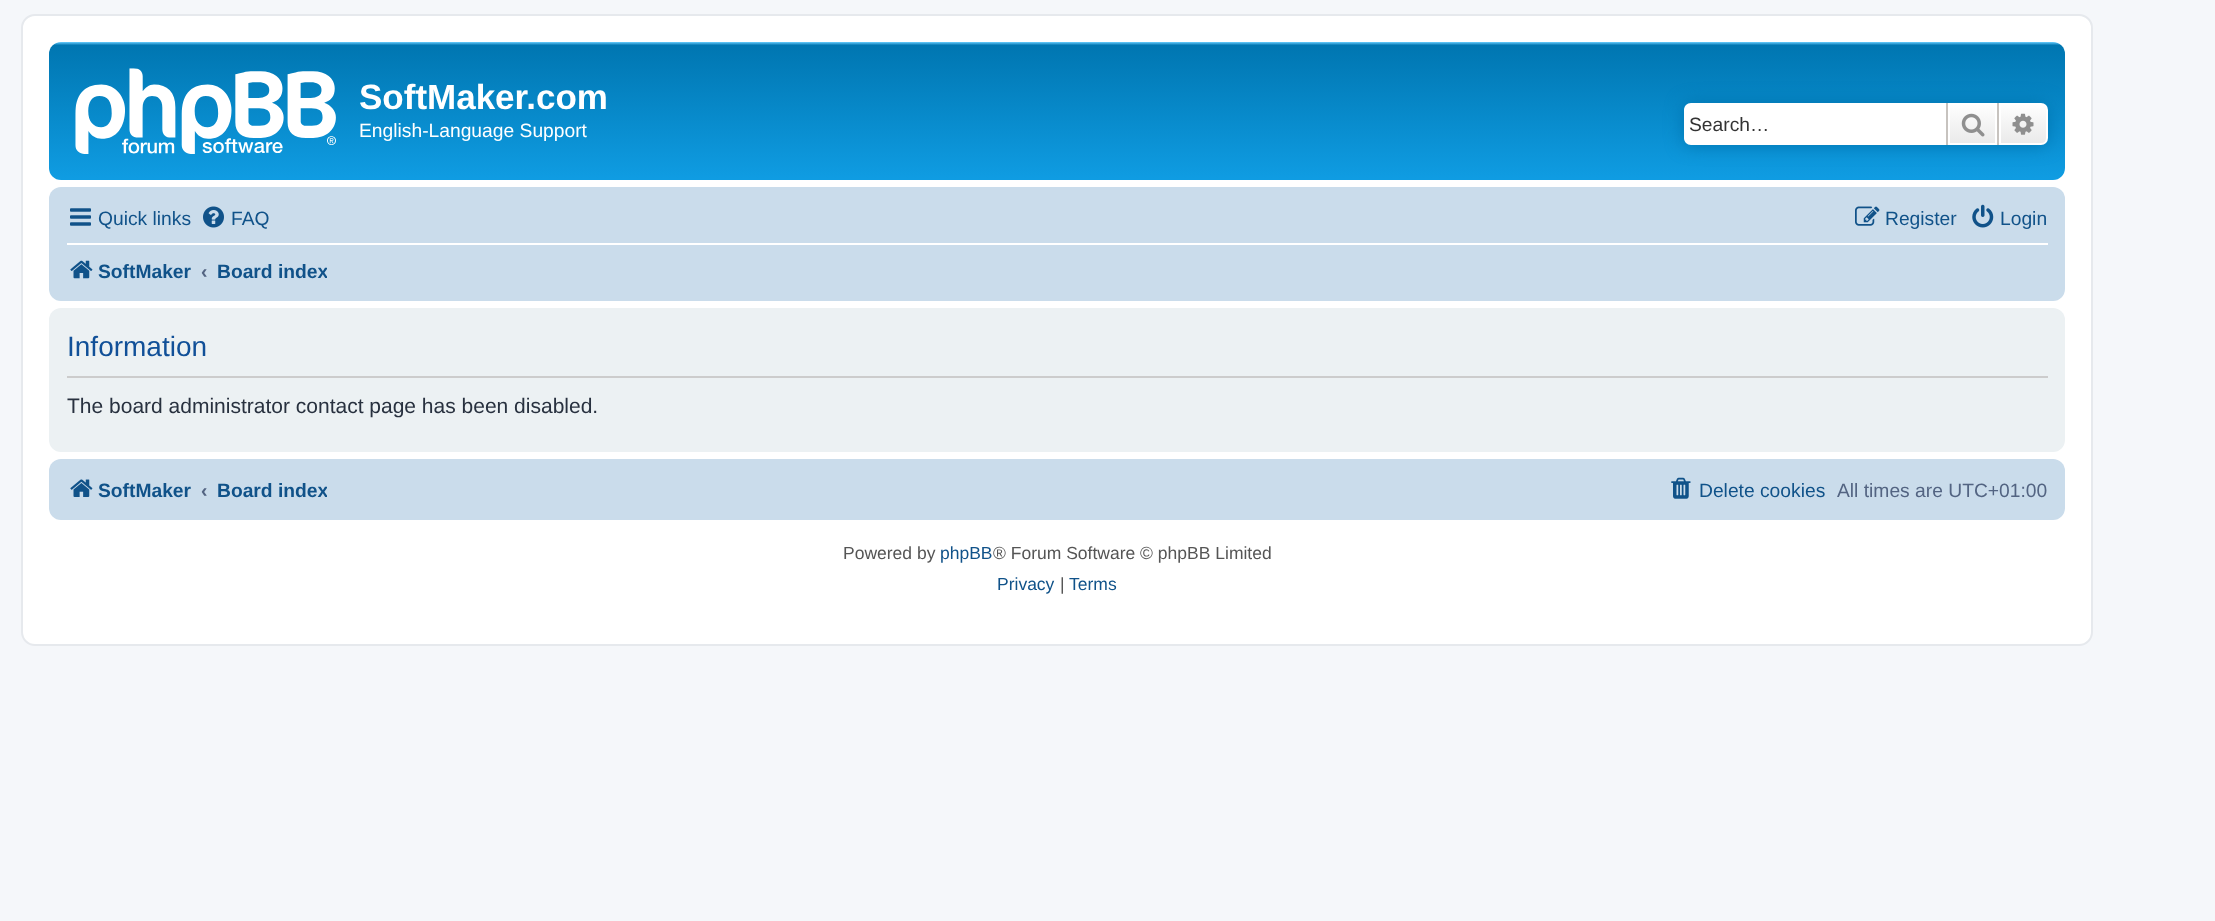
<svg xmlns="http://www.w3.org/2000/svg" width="2215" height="921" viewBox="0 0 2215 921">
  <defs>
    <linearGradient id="g1" gradientUnits="userSpaceOnUse" x1="1057" y1="42" x2="1057" y2="203"><stop offset="0" stop-color="rgb(106,206,255)"/><stop offset="0.02" stop-color="rgb(0,118,177)"/><stop offset="1" stop-color="rgb(18,163,235)"/></linearGradient>
    <linearGradient id="g2" gradientUnits="userSpaceOnUse" x1="1972" y1="103" x2="1972" y2="145"><stop offset="0" stop-color="rgb(255,255,255)"/><stop offset="1" stop-color="rgb(233,233,233)"/></linearGradient>
    <linearGradient id="g3" gradientUnits="userSpaceOnUse" x1="2023" y1="103" x2="2023" y2="145"><stop offset="0" stop-color="rgb(255,255,255)"/><stop offset="1" stop-color="rgb(233,233,233)"/></linearGradient>
    <clipPath id="clip1"><rect x="217" y="250" width="110" height="42"/></clipPath>
    <clipPath id="clip2"><rect x="217" y="469" width="110" height="42"/></clipPath>
  </defs>
  <rect width="100%" height="100%" fill="rgb(245,247,250)"/>
  <rect x="22" y="15" width="2070" height="630" rx="13" fill="rgb(255,255,255)" stroke="rgb(230,233,237)" stroke-width="2"/>
  <rect x="49" y="42" width="2016" height="138" rx="12" fill="url(#g1)"/>
  <image x="75" y="68" width="261" height="86" href="pic1.png"/>
  <text x="359" y="109" font-family="Liberation Sans" font-size="35" font-weight="bold" fill="rgb(255,255,255)">SoftMaker.com</text>
  <text x="359" y="137" font-family="Liberation Sans" font-size="19.25" fill="rgb(255,255,255)">English-Language Support</text>
  <rect x="1684" y="103" width="364" height="42" rx="7" fill="rgb(0,117,176)" filter="blur(9px)"/>
  <path d="M1691 103H1946V145H1691C1687 145 1684 142 1684 138V110C1684 106 1687 103 1691 103Z" fill="rgb(255,255,255)"/>
  <text x="1689" y="131" font-family="Liberation Sans" font-size="19.25" fill="rgb(51,51,51)">Search…</text>
  <rect x="1950" y="105" width="45" height="38" fill="url(#g2)"/>
  <rect x="1949" y="104" width="47" height="40" fill="none" stroke="rgb(255,255,255)" stroke-width="2"/>
  <rect x="1997" y="103" width="2" height="42" fill="rgb(199,195,191)"/>
  <rect x="1946" y="103" width="2" height="42" fill="rgb(199,195,191)"/>
  <image x="1961" y="113" width="24" height="24" href="pic2.png"/>
  <path d="M2000 104H2041C2044.5 104 2047 106.5 2047 110V138C2047 141.5 2044.5 144 2041 144H2000Z" fill="url(#g3)" stroke="rgb(255,255,255)" stroke-width="2"/>
  <image x="2012" y="113" width="22" height="22" href="pic3.png"/>
  <rect x="49" y="187" width="2016" height="114" rx="12" fill="rgb(202,220,235)"/>
  <image x="70" y="208" width="21" height="18" href="pic4.png"/>
  <text x="98" y="225" font-family="Liberation Sans" font-size="19.25" fill="rgb(16,82,137)">Quick links</text>
  <image x="203" y="206" width="21" height="22" href="pic5.png"/>
  <text x="231" y="225" font-family="Liberation Sans" font-size="19.25" fill="rgb(16,82,137)">FAQ</text>
  <image x="1855" y="206" width="25" height="20" href="pic6.png"/>
  <text x="1885" y="225" font-family="Liberation Sans" font-size="19.25" fill="rgb(16,82,137)">Register</text>
  <image x="1972" y="204" width="22" height="24" href="pic7.png"/>
  <text x="2000" y="225" font-family="Liberation Sans" font-size="19.25" fill="rgb(16,82,137)">Login</text>
  <rect x="67" y="243" width="1981" height="2" fill="rgb(255,255,255)"/>
  <image x="70" y="260" width="23" height="19" href="pic8.png"/>
  <text x="98" y="278" font-family="Liberation Sans" font-size="19.25" font-weight="bold" fill="rgb(16,82,137)">SoftMaker</text>
  <text x="201" y="278" font-family="Liberation Sans" font-size="19.25" font-weight="bold" fill="rgb(83,100,130)">‹</text>
  <g clip-path="url(#clip1)">
    <text x="217" y="278" font-family="Liberation Sans" font-size="19.25" font-weight="bold" fill="rgb(16,82,137)">Board index</text>
  </g>
  <rect x="49" y="308" width="2016" height="144" rx="12" fill="rgb(236,241,243)"/>
  <rect x="67" y="376" width="1981" height="2" fill="rgb(204,204,204)"/>
  <text x="67" y="356" font-family="Liberation Sans" font-size="28" fill="rgb(17,80,152)">Information</text>
  <text x="67" y="413" font-family="Liberation Sans" font-size="21" fill="rgb(40,49,63)">The board administrator contact page has been disabled.</text>
  <rect x="49" y="459" width="2016" height="61" rx="12" fill="rgb(202,220,235)"/>
  <image x="70" y="479" width="23" height="18" href="pic9.png"/>
  <text x="98" y="497" font-family="Liberation Sans" font-size="19.25" font-weight="bold" fill="rgb(16,82,137)">SoftMaker</text>
  <text x="201" y="497" font-family="Liberation Sans" font-size="19.25" font-weight="bold" fill="rgb(83,100,130)">‹</text>
  <g clip-path="url(#clip2)">
    <text x="217" y="497" font-family="Liberation Sans" font-size="19.25" font-weight="bold" fill="rgb(16,82,137)">Board index</text>
  </g>
  <image x="1671" y="477" width="20" height="22" href="pic10.png"/>
  <text x="1699" y="497" font-family="Liberation Sans" font-size="19.25" fill="rgb(16,82,137)">Delete cookies</text>
  <text x="1837" y="497" font-family="Liberation Sans" font-size="19.25" fill="rgb(83,100,130)">All times are UTC+01:00</text>
  <text x="843" y="559" font-family="Liberation Sans" font-size="17.5" fill="rgb(85,85,85)">Powered by</text>
  <text x="940" y="559" font-family="Liberation Sans" font-size="17.5" fill="rgb(16,82,137)">phpBB</text>
  <text x="993" y="559" font-family="Liberation Sans" font-size="17.5" fill="rgb(85,85,85)">® Forum Software © phpBB Limited</text>
  <text x="997" y="590" font-family="Liberation Sans" font-size="17.5" fill="rgb(16,82,137)">Privacy</text>
  <text x="1060" y="590" font-family="Liberation Sans" font-size="17.5" fill="rgb(85,85,85)">|</text>
  <text x="1069" y="590" font-family="Liberation Sans" font-size="17.5" fill="rgb(16,82,137)">Terms</text>
</svg>
